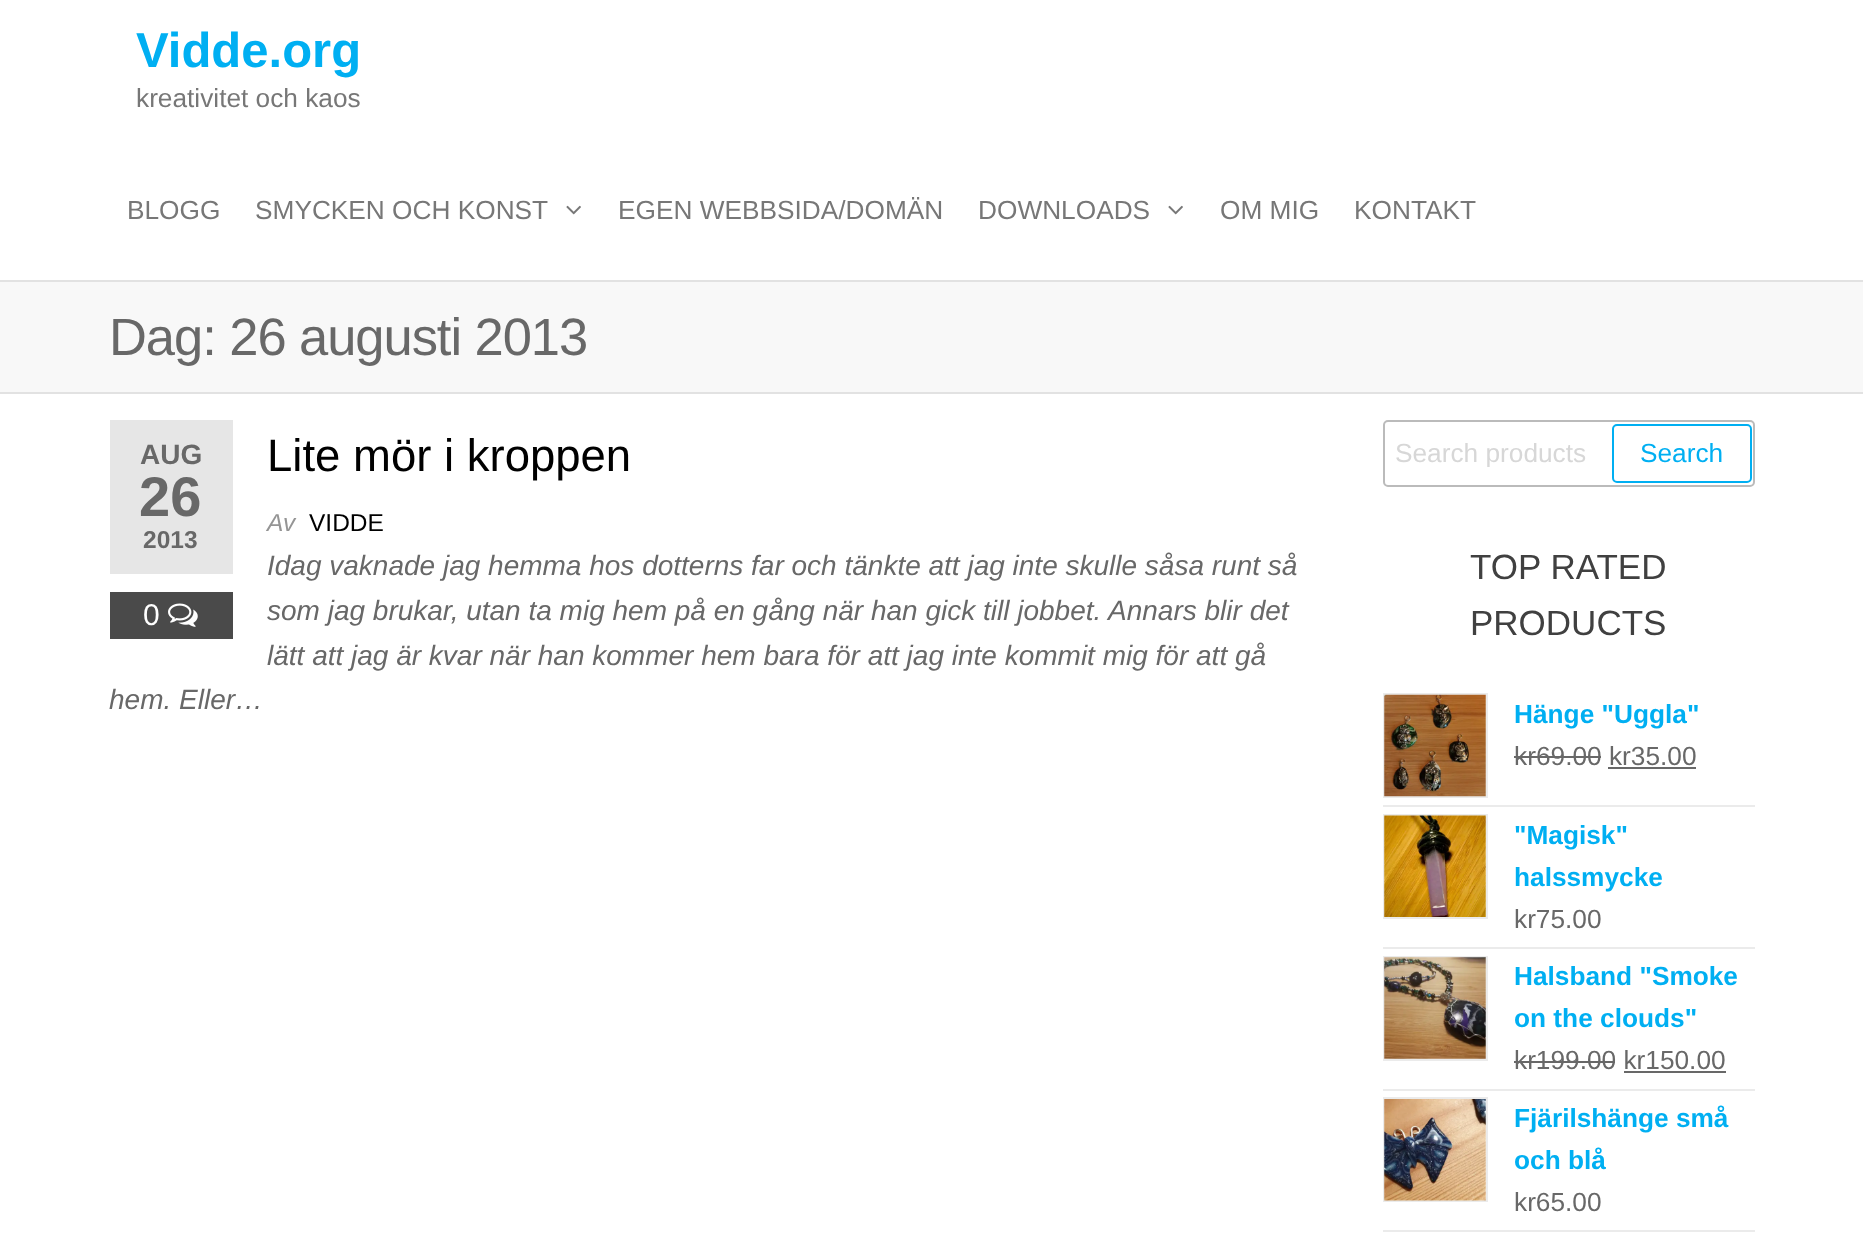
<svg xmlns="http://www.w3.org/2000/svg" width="1863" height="1237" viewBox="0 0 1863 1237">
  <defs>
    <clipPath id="clip1"><rect x="1395" y="438" width="194" height="29"/></clipPath>
  </defs>
  <rect width="100%" height="100%" fill="rgb(255,255,255)"/>
  <rect x="0" y="280" width="1863" height="2" fill="rgb(226,226,226)"/>
  <text x="136" y="67" font-family="Liberation Sans" font-size="49" font-weight="bold" fill="rgb(0,175,242)">Vidde.org</text>
  <g font-family="Liberation Sans" font-size="26.25" fill="rgb(119,119,119)">
    <text x="136" y="107">kreativitet och kaos</text>
    <text x="127" y="219">BLOGG</text>
    <text x="255" y="219">SMYCKEN OCH KONST</text>
  </g>
  <image x="566" y="205" width="15" height="10" href="pic1.png"/>
  <g font-family="Liberation Sans" font-size="26.25" fill="rgb(119,119,119)">
    <text x="618" y="219">EGEN WEBBSIDA/DOMÄN</text>
    <text x="978" y="219">DOWNLOADS</text>
  </g>
  <image x="1168" y="205" width="15" height="10" href="pic1.png"/>
  <g font-family="Liberation Sans" font-size="26.25" fill="rgb(119,119,119)">
    <text x="1220" y="219">OM MIG</text>
    <text x="1354" y="219">KONTAKT</text>
  </g>
  <rect x="0" y="282" width="1863" height="110" fill="rgb(248,248,248)"/>
  <rect x="0" y="392" width="1863" height="2" fill="rgb(226,226,226)"/>
  <text x="109" y="355" font-family="Liberation Sans" font-size="52.5" letter-spacing="-1.05" fill="rgb(104,104,104)">Dag: 26 augusti 2013</text>
  <rect x="110" y="420" width="123" height="154" fill="rgb(230,230,230)"/>
  <text x="140" y="464" font-family="Liberation Sans" font-size="28" font-weight="bold" fill="rgb(104,104,104)">AUG</text>
  <text x="139" y="516" font-family="Liberation Sans" font-size="56" font-weight="bold" fill="rgb(104,104,104)">26</text>
  <text x="143" y="548" font-family="Liberation Sans" font-size="24.5" font-weight="bold" fill="rgb(104,104,104)">2013</text>
  <rect x="110" y="592" width="123" height="47" fill="rgb(74,74,74)"/>
  <text x="143" y="625" font-family="Liberation Sans" font-size="30" fill="rgb(255,255,255)">0</text>
  <image x="168" y="603" width="30" height="24" href="pic2.png"/>
  <text x="267" y="471" font-family="Liberation Sans" font-size="45.5" fill="rgb(0,0,0)">Lite mör i kroppen</text>
  <text x="267" y="531" font-family="Liberation Sans" font-size="24.5" font-style="italic" fill="rgb(149,149,149)">Av</text>
  <text x="309" y="531" font-family="Liberation Sans" font-size="24.5" fill="rgb(0,0,0)">VIDDE</text>
  <g font-family="Liberation Sans" font-size="28" font-style="italic" fill="rgb(104,104,104)">
    <text>
      <tspan x="267" y="575">Idag vaknade jag hemma hos dotterns far och tänkte att jag inte skulle såsa runt så</tspan>
      <tspan x="267" y="620">som jag brukar, utan ta mig hem på en gång när han gick till jobbet. Annars blir det</tspan>
      <tspan x="267" y="665">lätt att jag är kvar när han kommer hem bara för att jag inte kommit mig för att gå</tspan>
    </text>
    <text x="109" y="709">hem. Eller…</text>
  </g>
  <rect x="1384" y="421" width="370" height="65" rx="4" fill="none" stroke="rgb(187,187,187)" stroke-width="2"/>
  <g clip-path="url(#clip1)">
    <text x="1395" y="462" font-family="Liberation Sans" font-size="26.25" fill="rgb(215,215,215)">Search products</text>
  </g>
  <rect x="1613" y="425" width="138" height="57" rx="4" fill="none" stroke="rgb(0,175,242)" stroke-width="2"/>
  <text x="1640" y="462" font-family="Liberation Sans" font-size="26.25" fill="rgb(0,175,242)">Search</text>
  <g font-family="Liberation Sans" font-size="35" fill="rgb(64,64,64)">
    <text>
      <tspan x="1470" y="579">TOP RATED</tspan>
      <tspan x="1470" y="635">PRODUCTS</tspan>
    </text>
  </g>
  <rect x="1383" y="805" width="372" height="2" fill="rgb(235,235,235)"/>
  <rect x="1384" y="694" width="103" height="103" fill="none" stroke="rgb(235,235,235)" stroke-width="2"/>
  <image x="1384" y="694" width="102" height="103" href="pic3.png"/>
  <text x="1514" y="723" font-family="Liberation Sans" font-size="26.25" font-weight="bold" fill="rgb(0,175,242)">Hänge "Uggla"</text>
  <text x="1514" y="765" font-family="Liberation Sans" font-size="26.25" fill="rgb(104,104,104)">kr</text>
  <rect x="1514" y="756" width="23" height="2" fill="rgb(104,104,104)"/>
  <text x="1536" y="765" font-family="Liberation Sans" font-size="26.25" fill="rgb(104,104,104)">69.00 kr35.00</text>
  <rect x="1537" y="756" width="64" height="2" fill="rgb(104,104,104)"/>
  <rect x="1608" y="767" width="88" height="2" fill="rgb(104,104,104)"/>
  <rect x="1383" y="947" width="372" height="2" fill="rgb(235,235,235)"/>
  <rect x="1384" y="815" width="103" height="103" fill="none" stroke="rgb(235,235,235)" stroke-width="2"/>
  <image x="1384" y="815" width="102" height="102" href="pic4.png"/>
  <g font-family="Liberation Sans" font-size="26.25" font-weight="bold" fill="rgb(0,175,242)">
    <text>
      <tspan x="1514" y="844">"Magisk"</tspan>
      <tspan x="1514" y="886">halssmycke</tspan>
    </text>
  </g>
  <text x="1514" y="928" font-family="Liberation Sans" font-size="26.25" fill="rgb(104,104,104)">kr75.00</text>
  <rect x="1383" y="1089" width="372" height="2" fill="rgb(235,235,235)"/>
  <rect x="1384" y="957" width="103" height="103" fill="none" stroke="rgb(235,235,235)" stroke-width="2"/>
  <image x="1384" y="957" width="102" height="102" href="pic5.png"/>
  <g font-family="Liberation Sans" font-size="26.25" font-weight="bold" fill="rgb(0,175,242)">
    <text>
      <tspan x="1514" y="985">Halsband "Smoke</tspan>
      <tspan x="1514" y="1027">on the clouds"</tspan>
    </text>
  </g>
  <text x="1514" y="1069" font-family="Liberation Sans" font-size="26.25" fill="rgb(104,104,104)">kr199.00 kr150.00</text>
  <rect x="1514" y="1061" width="101" height="2" fill="rgb(104,104,104)"/>
  <rect x="1624" y="1071" width="102" height="2" fill="rgb(104,104,104)"/>
  <rect x="1383" y="1230" width="372" height="2" fill="rgb(235,235,235)"/>
  <rect x="1384" y="1098" width="103" height="103" fill="none" stroke="rgb(235,235,235)" stroke-width="2"/>
  <image x="1384" y="1099" width="102" height="102" href="pic6.png"/>
  <g font-family="Liberation Sans" font-size="26.25" font-weight="bold" fill="rgb(0,175,242)">
    <text>
      <tspan x="1514" y="1127">Fjärilshänge små</tspan>
      <tspan x="1514" y="1169">och blå</tspan>
    </text>
  </g>
  <text x="1514" y="1211" font-family="Liberation Sans" font-size="26.25" fill="rgb(104,104,104)">kr65.00</text>
</svg>
